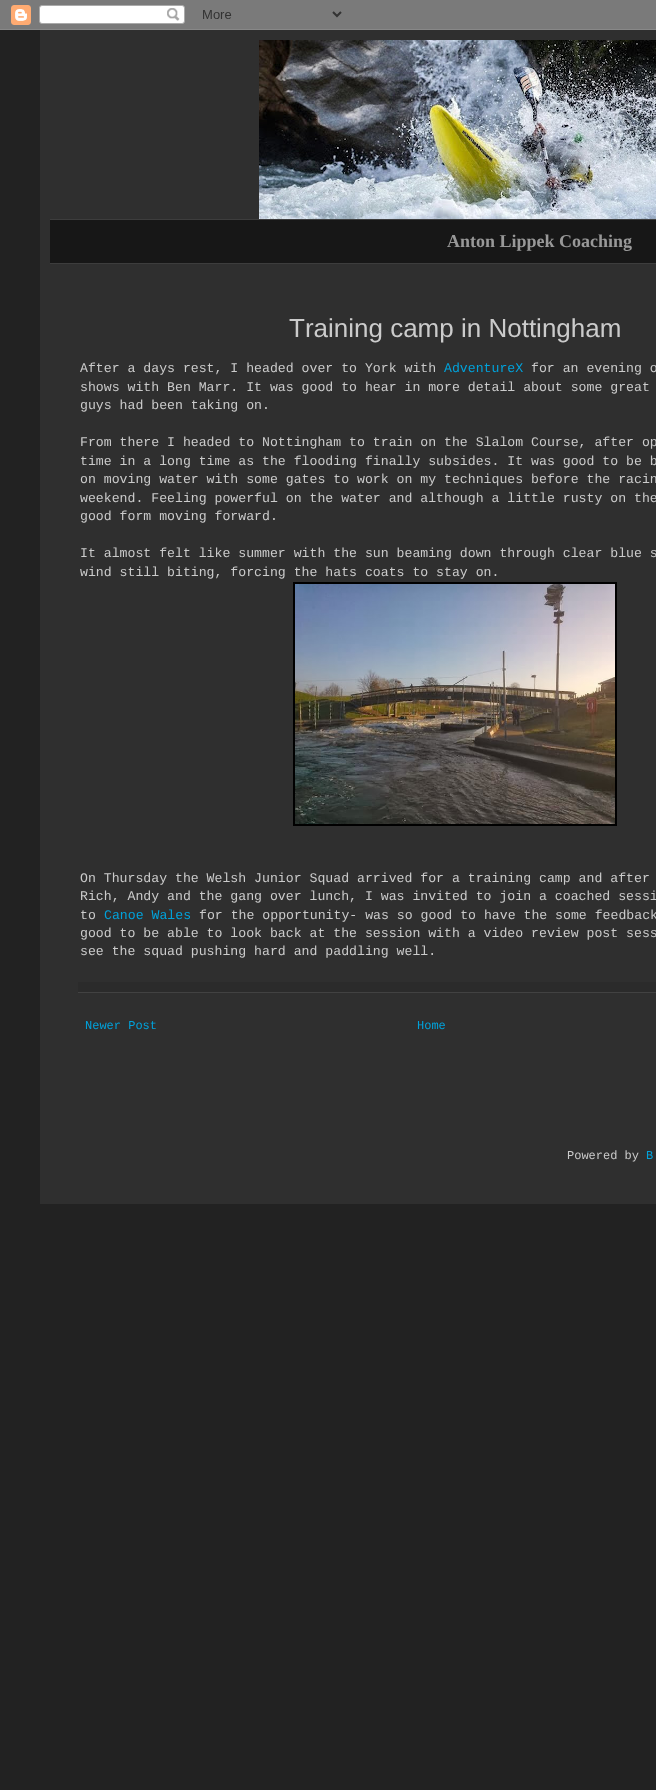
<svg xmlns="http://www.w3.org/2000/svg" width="656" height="1790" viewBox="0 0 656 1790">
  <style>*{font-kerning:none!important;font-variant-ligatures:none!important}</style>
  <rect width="100%" height="100%" fill="rgb(34,34,34)"/>
  <image x="0" y="0" width="656" height="30" href="pic1.png"/>
  <rect x="40" y="30" width="616" height="1174" fill="rgb(47,47,47)"/>
  <image x="259" y="40" width="397" height="179" href="pic2.png"/>
  <rect x="50" y="220" width="606" height="43" fill="rgb(23,23,23)"/>
  <rect x="50" y="219" width="606" height="1" fill="rgb(61,61,61)"/>
  <rect x="50" y="263" width="606" height="1" fill="rgb(61,61,61)"/>
  <text x="447" y="247" font-family="Liberation Serif" font-size="18" font-weight="bold" fill="rgb(152,152,152)">Anton Lippek Coaching</text>
  <text x="289" y="337" font-family="Liberation Sans" font-size="26" fill="rgb(203,203,203)">Training camp in Nottingham</text>
  <text x="80" y="372" font-family="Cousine" font-size="13.2" fill="rgb(203,203,203)">After a days rest, I headed over to York with</text>
  <text x="444" y="372" font-family="Cousine" font-size="13.2" fill="rgb(0,162,219)">AdventureX</text>
  <g font-family="Cousine" font-size="13.2" fill="rgb(203,203,203)">
    <text x="531" y="372">for an evening o</text>
    <text>
      <tspan x="80" y="391">shows with Ben Marr. It was good to hear in more detail about some great</tspan>
      <tspan x="80" y="409">guys had been taking on.</tspan>
    </text>
    <text>
      <tspan x="80" y="446">From there I headed to Nottingham to train on the Slalom Course, after op</tspan>
      <tspan x="80" y="465">time in a long time as the flooding finally subsides. It was good to be b</tspan>
      <tspan x="80" y="483">on moving water with some gates to work on my techniques before the racin</tspan>
      <tspan x="80" y="502">weekend. Feeling powerful on the water and although a little rusty on the</tspan>
      <tspan x="80" y="520">good form moving forward.</tspan>
    </text>
    <text>
      <tspan x="80" y="557">It almost felt like summer with the sun beaming down through clear blue s</tspan>
      <tspan x="80" y="576">wind still biting, forcing the hats coats to stay on.</tspan>
    </text>
  </g>
  <rect x="293" y="582" width="324" height="244" fill="rgb(0,0,0)"/>
  <image x="295" y="584" width="320" height="240" href="pic3.png"/>
  <g font-family="Cousine" font-size="13.2" fill="rgb(203,203,203)">
    <text>
      <tspan x="80" y="882">On Thursday the Welsh Junior Squad arrived for a training camp and after</tspan>
      <tspan x="80" y="900">Rich, Andy and the gang over lunch, I was invited to join a coached sessi</tspan>
      <tspan x="80" y="919">to</tspan>
    </text>
  </g>
  <text x="104" y="919" font-family="Cousine" font-size="13.2" fill="rgb(0,162,219)">Canoe Wales</text>
  <g font-family="Cousine" font-size="13.2" fill="rgb(203,203,203)">
    <text x="199" y="919">for the opportunity- was so good to have the some feedback</text>
    <text>
      <tspan x="80" y="937">good to be able to look back at the session with a video review post sess</tspan>
      <tspan x="80" y="955">see the squad pushing hard and paddling well.</tspan>
    </text>
  </g>
  <rect x="78" y="982" width="578" height="10" fill="rgb(43,43,43)"/>
  <rect x="78" y="992" width="578" height="1" fill="rgb(66,66,66)"/>
  <g font-family="Cousine" font-size="12" fill="rgb(0,162,219)">
    <text x="85" y="1029">Newer Post</text>
    <text x="417" y="1029">Home</text>
  </g>
  <text x="567" y="1159" font-family="Cousine" font-size="12" fill="rgb(203,203,203)">Powered by</text>
  <text x="646" y="1159" font-family="Cousine" font-size="12" fill="rgb(0,162,219)">B</text>
</svg>
